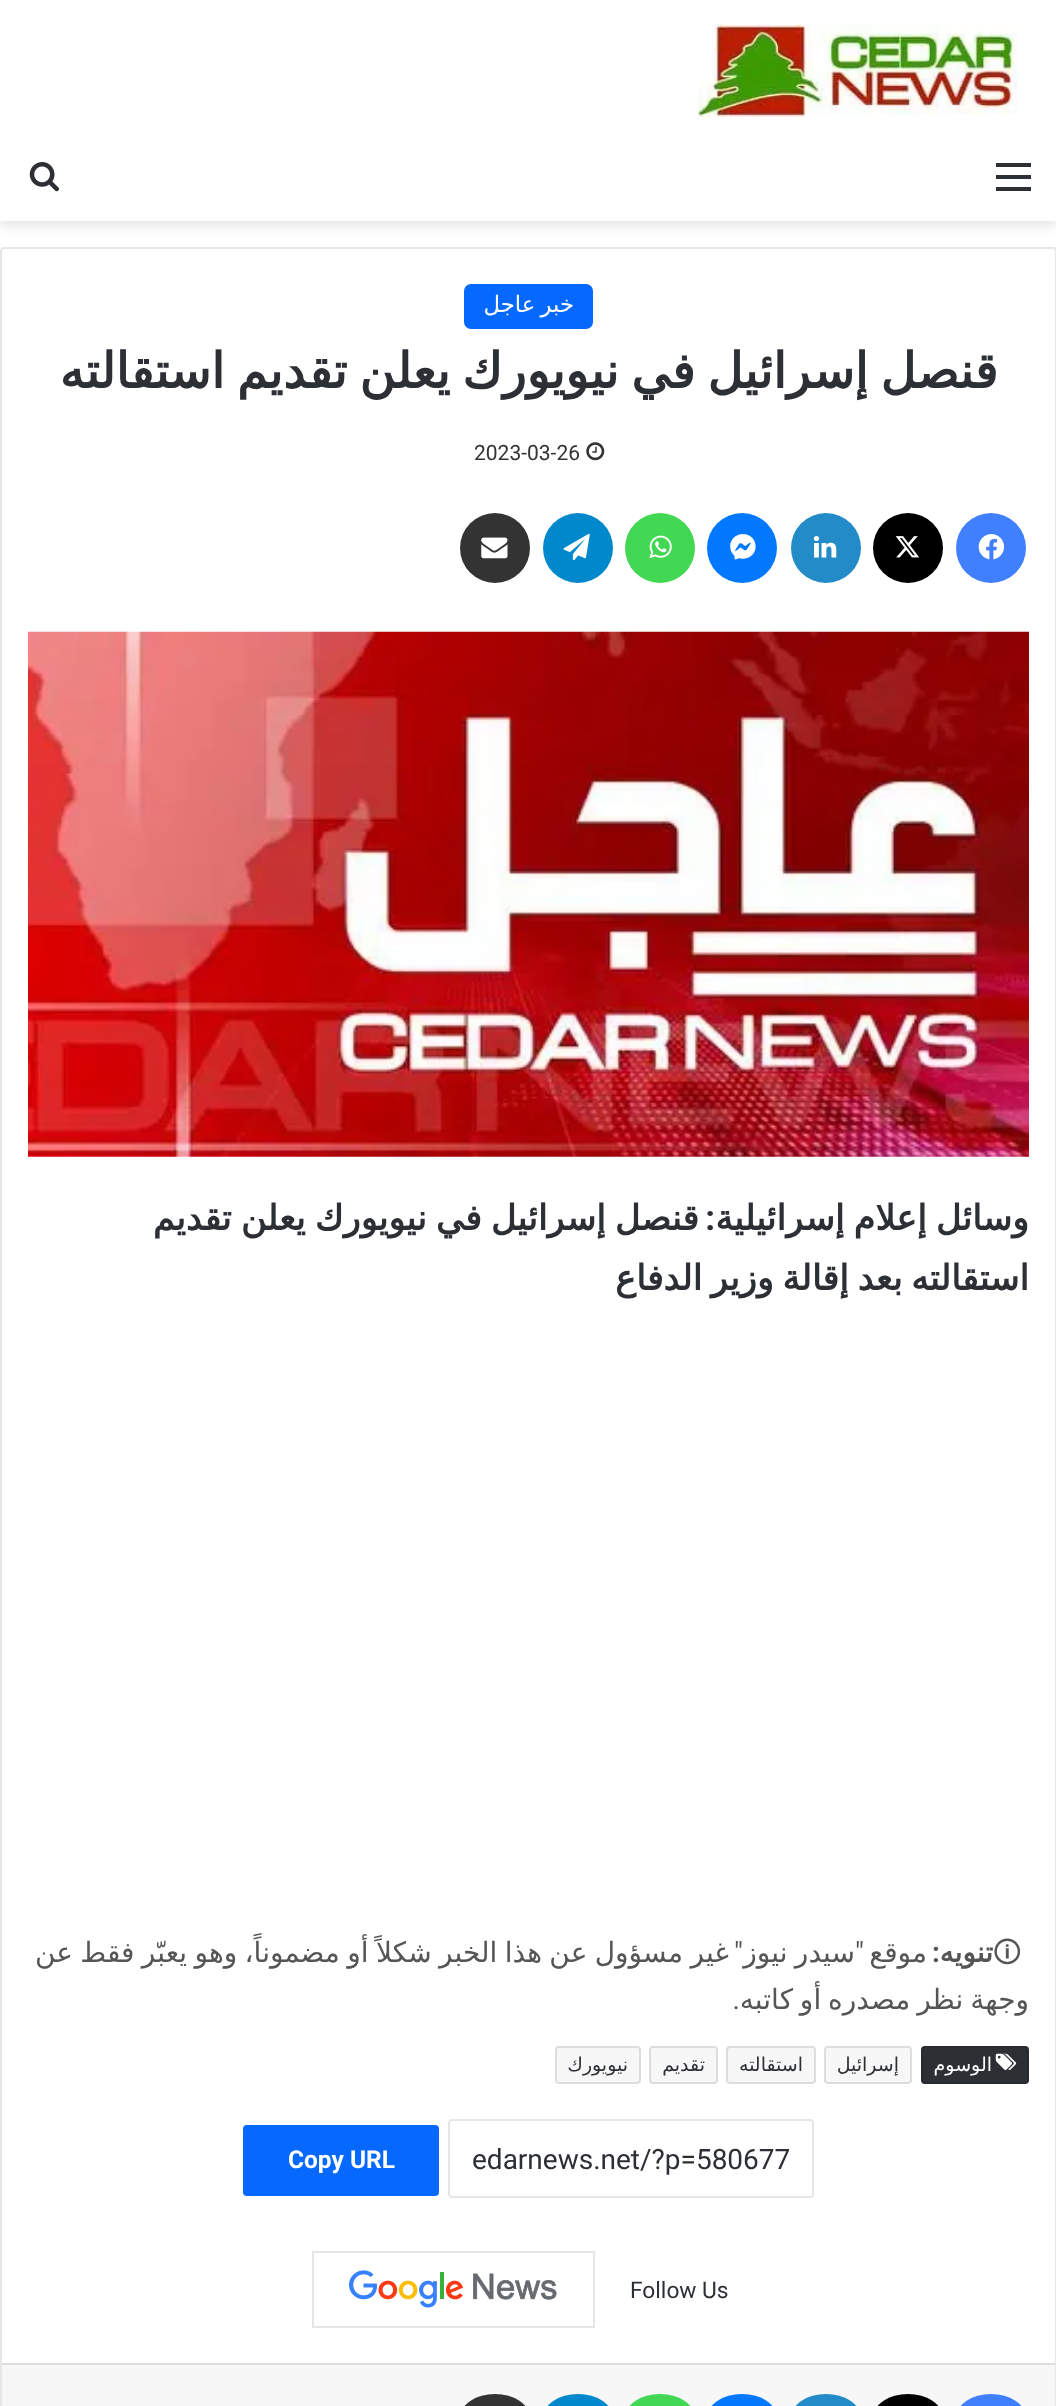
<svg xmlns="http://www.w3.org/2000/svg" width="1056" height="2406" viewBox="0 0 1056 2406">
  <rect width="100%" height="100%" fill="rgb(255,255,255)"/>
  <rect x="0" y="5" width="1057" height="221" fill="rgba(0,0,0,0.1)" filter="blur(6px)"/>
  <rect x="0" y="0" width="1056" height="221" fill="rgb(255,255,255)"/>
  <image x="698" y="24" width="320" height="94" href="pic1.png"/>
  <rect x="996" y="175" width="35" height="4" fill="rgb(44,47,52)"/>
  <rect x="996" y="163" width="35" height="4" fill="rgb(44,47,52)"/>
  <rect x="996" y="187" width="35" height="4" fill="rgb(44,47,52)"/>
  <image x="29" y="162" width="30" height="30" href="pic2.png"/>
  <rect x="1" y="248" width="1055" height="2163" rx="3" fill="none" stroke="rgb(230,230,230)" stroke-width="2"/>
  <rect x="464" y="284" width="129" height="45" rx="7" fill="rgb(6,105,255)"/>
  <text x="574" y="312" word-spacing="-2" font-family="DejaVu Sans" font-size="22.75" direction="rtl" fill="rgb(255,255,255)">خبر عاجل</text>
  <text x="998" y="388" word-spacing="-3.5" font-family="DejaVu Sans" font-size="49" font-weight="bold" direction="rtl" fill="rgb(44,47,52)">قنصل إسرائيل في نيويورك يعلن تقديم استقالته</text>
  <image x="586" y="442" width="19" height="19" href="pic3.png"/>
  <text x="474" y="460" font-family="Roboto" font-size="21" fill="rgb(51,51,51)">2023-03-26</text>
  <circle cx="991" cy="548" r="35" fill="rgb(64,128,255)"/>
  <image x="978" y="534" width="27" height="26" href="pic4.png"/>
  <circle cx="908" cy="548" r="35" fill="rgb(0,0,0)"/>
  <image x="895" y="536" width="25" height="22" href="pic5.png"/>
  <circle cx="826" cy="548" r="35" fill="rgb(35,140,200)"/>
  <image x="813" y="536" width="24" height="22" href="pic6.png"/>
  <circle cx="742" cy="548" r="35" fill="rgb(0,120,255)"/>
  <image x="730" y="534" width="26" height="26" href="pic7.png"/>
  <circle cx="660" cy="548" r="35" fill="rgb(67,216,84)"/>
  <image x="649" y="535" width="23" height="24" href="pic8.png"/>
  <circle cx="578" cy="548" r="35" fill="rgb(0,136,204)"/>
  <image x="563" y="533" width="27" height="28" href="pic9.png"/>
  <circle cx="495" cy="548" r="35" fill="rgb(51,51,51)"/>
  <image x="481" y="537" width="27" height="22" href="pic10.png"/>
  <image x="28" y="631" width="1001" height="526" href="pic11.png"/>
  <g font-family="DejaVu Sans" font-size="35" font-weight="bold" direction="rtl" fill="rgb(44,47,52)">
    <text x="1029" y="1230" word-spacing="-2">وسائل إعلام إسرائيلية</text>
    <text x="699" y="1230" word-spacing="-2">قنصل إسرائيل في نيويورك يعلن تقديم</text>
  </g>
  <text x="715" y="1230" font-family="Roboto" font-size="35" font-weight="bold" direction="rtl" fill="rgb(44,47,52)">:</text>
  <text x="1029" y="1290" word-spacing="-2.5" font-family="DejaVu Sans" font-size="35" font-weight="bold" direction="rtl" fill="rgb(44,47,52)">استقالته بعد إقالة وزير الدفاع</text>
  <text x="993" y="1962" font-family="'Noto Sans Symbols 2'" font-size="28" fill="rgb(85,85,85)">🛈</text>
  <text x="729" y="1962" word-spacing="-1.5" font-family="DejaVu Sans" font-size="28" direction="rtl" fill="rgb(85,85,85)">غير مسؤول عن هذا الخبر شكلاً أو مضموناً، وهو يعبّر فقط عن</text>
  <text x="993" y="1962" font-family="DejaVu Sans" font-size="28" font-weight="bold" direction="rtl" fill="rgb(85,85,85)">تنويه</text>
  <text x="940" y="1962" font-family="Roboto" font-size="28" font-weight="bold" direction="rtl" fill="rgb(85,85,85)">:</text>
  <text x="927" y="1962" font-family="DejaVu Sans" font-size="28" direction="rtl" fill="rgb(85,85,85)">موقع</text>
  <text x="864" y="1962" font-family="Roboto" font-size="28" direction="rtl" fill="rgb(85,85,85)">"</text>
  <text x="855" y="1962" word-spacing="-1.5" font-family="DejaVu Sans" font-size="28" direction="rtl" fill="rgb(85,85,85)">سيدر نيوز</text>
  <text x="743" y="1962" font-family="Roboto" font-size="28" direction="rtl" fill="rgb(85,85,85)">"</text>
  <text x="1029" y="2009" word-spacing="-2" font-family="DejaVu Sans" font-size="28" direction="rtl" fill="rgb(85,85,85)">وجهة نظر مصدره أو كاتبه</text>
  <text x="740" y="2009" font-family="Roboto" font-size="28" direction="rtl" fill="rgb(85,85,85)">.</text>
  <rect x="921" y="2046" width="108" height="38" rx="4" fill="rgb(44,47,52)"/>
  <rect x="922" y="2047" width="106" height="36" rx="3" fill="none" stroke="rgba(0,0,0,0.1)" stroke-width="2"/>
  <image x="995" y="2053" width="22" height="17" href="pic12.png"/>
  <text x="992" y="2071" font-family="DejaVu Sans" font-size="19" direction="rtl" fill="rgb(255,255,255)">الوسوم</text>
  <rect x="824" y="2046" width="88" height="38" rx="4" fill="rgb(247,247,247)"/>
  <rect x="825" y="2047" width="86" height="36" rx="3" fill="none" stroke="rgba(0,0,0,0.1)" stroke-width="2"/>
  <text x="899" y="2071" font-family="DejaVu Sans" font-size="19" direction="rtl" fill="rgb(44,47,52)">إسرائيل</text>
  <rect x="726" y="2046" width="90" height="38" rx="4" fill="rgb(247,247,247)"/>
  <rect x="727" y="2047" width="88" height="36" rx="3" fill="none" stroke="rgba(0,0,0,0.1)" stroke-width="2"/>
  <text x="803" y="2071" font-family="DejaVu Sans" font-size="19" direction="rtl" fill="rgb(44,47,52)">استقالته</text>
  <rect x="649" y="2046" width="69" height="38" rx="4" fill="rgb(247,247,247)"/>
  <rect x="650" y="2047" width="67" height="36" rx="3" fill="none" stroke="rgba(0,0,0,0.1)" stroke-width="2"/>
  <text x="705" y="2071" font-family="DejaVu Sans" font-size="19" direction="rtl" fill="rgb(44,47,52)">تقديم</text>
  <rect x="555" y="2046" width="86" height="38" rx="4" fill="rgb(247,247,247)"/>
  <rect x="556" y="2047" width="84" height="36" rx="3" fill="none" stroke="rgba(0,0,0,0.1)" stroke-width="2"/>
  <text x="628" y="2071" font-family="DejaVu Sans" font-size="19" direction="rtl" fill="rgb(44,47,52)">نيويورك</text>
  <rect x="449" y="2120" width="364" height="77" rx="3" fill="none" stroke="rgb(230,230,230)" stroke-width="2"/>
  <text x="472" y="2169" font-family="Roboto" font-size="28" fill="rgb(44,47,52)">edarnews.net/?p=580677</text>
  <rect x="243" y="2125" width="196" height="71" rx="4" fill="rgb(6,105,255)"/>
  <text x="288" y="2168" font-family="Roboto" font-size="24.5" font-weight="bold" fill="rgb(255,255,255)">Copy URL</text>
  <text x="630" y="2298" font-family="Roboto" font-size="22.75" fill="rgb(44,47,52)">Follow Us</text>
  <rect x="313" y="2252" width="281" height="75" fill="none" stroke="rgb(230,230,230)" stroke-width="2"/>
  <image x="349" y="2270" width="208" height="38" href="pic13.png"/>
  <rect x="2" y="2365" width="1053" height="41" fill="rgb(247,247,247)"/>
  <rect x="2" y="2363" width="1053" height="2" fill="rgb(222,222,222)"/>
  <rect x="956" y="2394" width="70" height="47" rx="35" fill="rgb(64,128,255)"/>
  <rect x="873" y="2394" width="70" height="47" rx="35" fill="rgb(0,0,0)"/>
  <rect x="791" y="2394" width="70" height="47" rx="35" fill="rgb(35,140,200)"/>
  <rect x="707" y="2394" width="70" height="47" rx="35" fill="rgb(0,120,255)"/>
  <rect x="625" y="2394" width="70" height="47" rx="35" fill="rgb(67,216,84)"/>
  <rect x="543" y="2394" width="70" height="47" rx="35" fill="rgb(0,136,204)"/>
  <rect x="460" y="2394" width="70" height="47" rx="35" fill="rgb(51,51,51)"/>
</svg>
